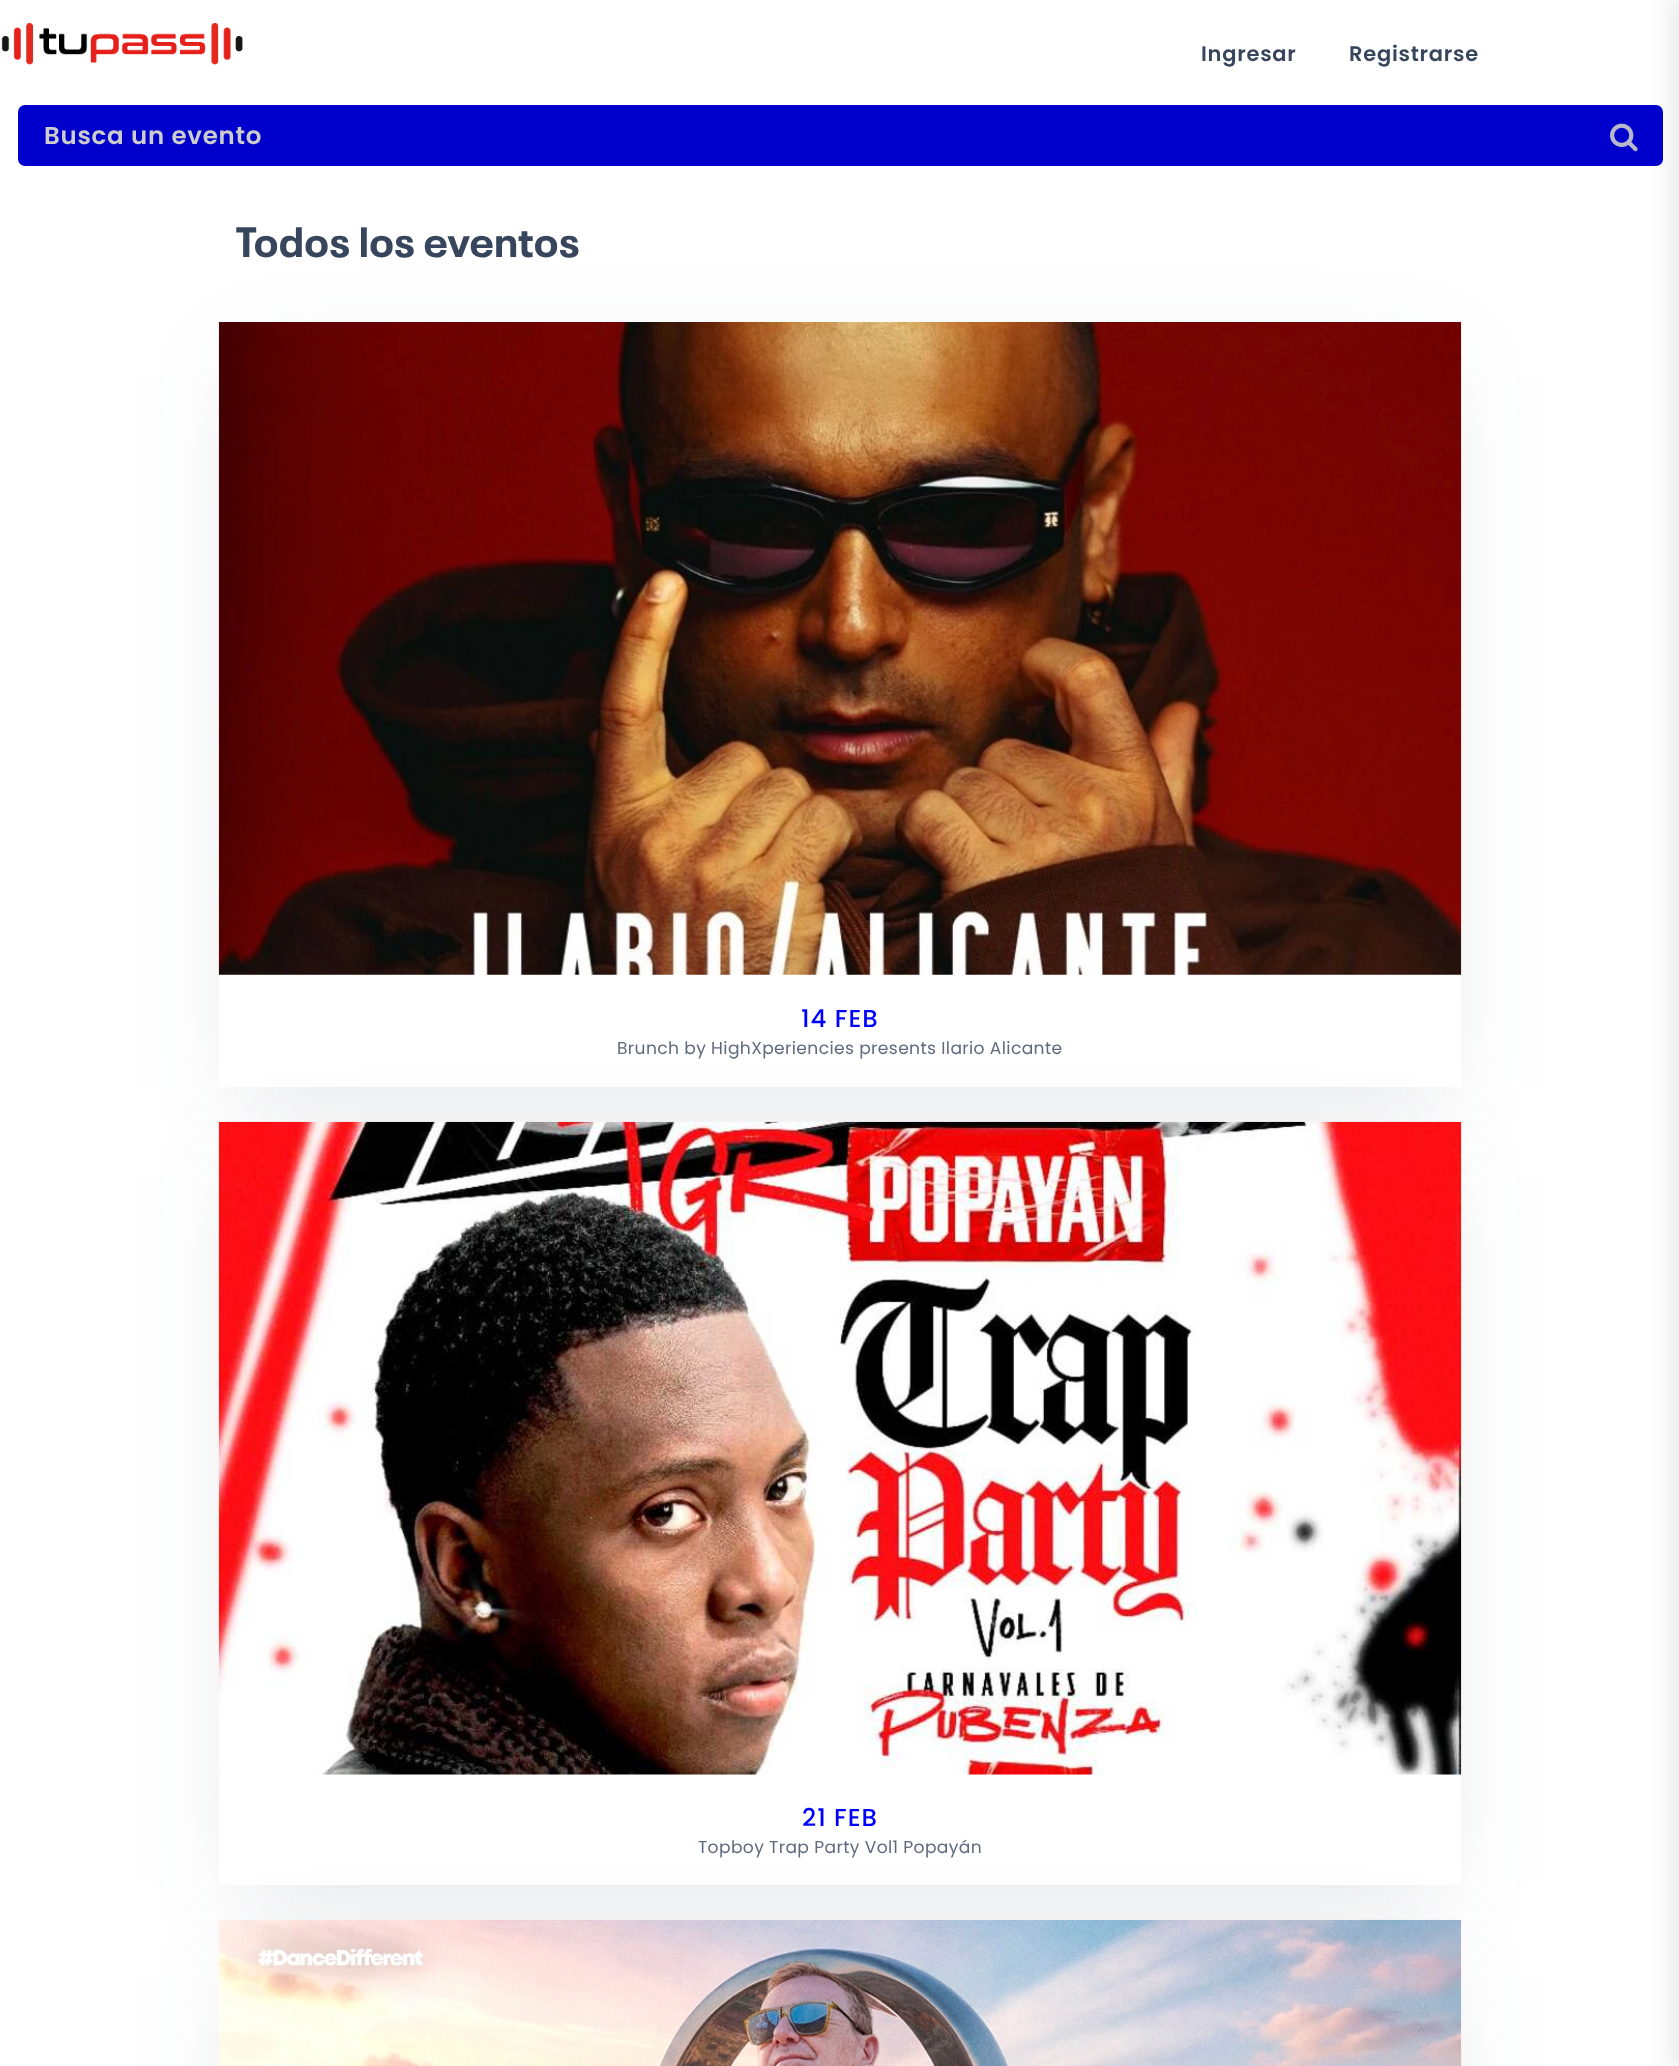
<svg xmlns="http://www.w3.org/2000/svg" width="1679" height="2066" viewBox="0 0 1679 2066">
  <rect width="100%" height="100%" fill="rgb(255,255,255)"/>
  <image x="1" y="23" width="242" height="42" href="pic1.png"/>
  <g font-family="Poppins" font-size="21" font-weight="600" letter-spacing="0.75" fill="rgb(55,70,92)">
    <text x="1201" y="61">Ingresar</text>
    <text x="1349" y="61">Registrarse</text>
  </g>
  <rect x="18" y="105" width="1645" height="61" rx="7" fill="rgb(0,0,204)"/>
  <text x="44" y="144" font-family="Poppins" font-size="24.5" font-weight="600" letter-spacing="0.75" fill="rgb(204,204,204)">Busca un evento</text>
  <image x="1610" y="123" width="28" height="29" href="pic2.png"/>
  <rect x="1671" y="-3" width="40" height="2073" fill="rgba(0,0,0,0.09)" filter="blur(10.5px)"/>
  <text x="236" y="257" font-family="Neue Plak" font-size="42" font-weight="bold" letter-spacing="0.75" fill="rgb(55,70,92)">Todos los eventos</text>
  <rect x="247" y="378" width="1186" height="709" fill="rgba(46,55,77,0.14)" filter="blur(56px)"/>
  <rect x="219" y="974" width="1242" height="113" fill="rgb(255,255,255)"/>
  <image x="218" y="322" width="1244" height="653" href="pic3.png"/>
  <text x="801" y="1027" font-family="Poppins" font-size="24.5" font-weight="500" letter-spacing="1" fill="rgb(0,0,255)">14 FEB</text>
  <text x="617" y="1054" font-family="Poppins" font-size="17.15" letter-spacing="0.35" fill="rgb(95,107,125)">Brunch by HighXperiencies presents Ilario Alicante</text>
  <rect x="247" y="1178" width="1186" height="707" fill="rgba(46,55,77,0.14)" filter="blur(56px)"/>
  <rect x="219" y="1774" width="1242" height="111" fill="rgb(255,255,255)"/>
  <rect x="247" y="1976" width="1186" height="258" fill="rgba(46,55,77,0.14)" filter="blur(56px)"/>
  <image x="219" y="1919" width="1243" height="147" href="pic4.png"/>
  <image x="218" y="1121" width="1244" height="654" href="pic5.png"/>
  <text x="802" y="1826" font-family="Poppins" font-size="24.5" font-weight="500" letter-spacing="1" fill="rgb(0,0,255)">21 FEB</text>
  <text x="698" y="1853" font-family="Poppins" font-size="17.15" letter-spacing="0.35" fill="rgb(95,107,125)">Topboy Trap Party Vol1 Popayán</text>
</svg>
